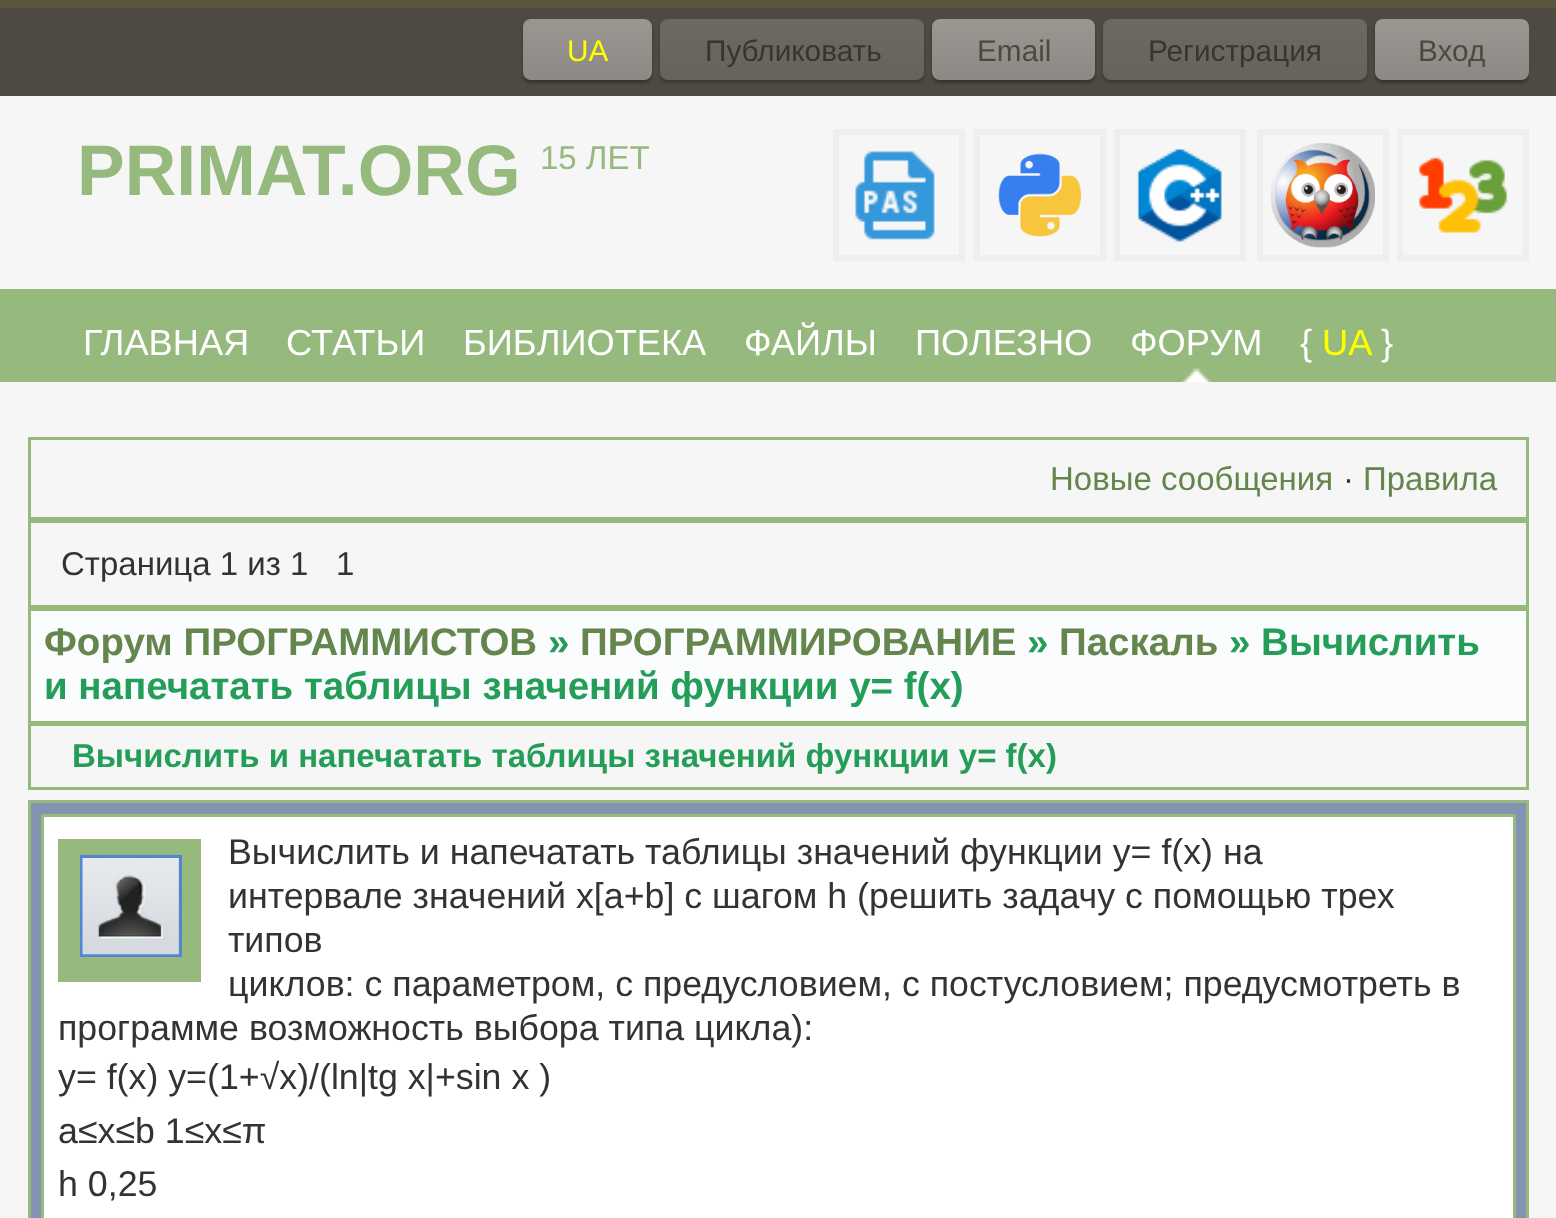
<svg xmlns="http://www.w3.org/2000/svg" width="1556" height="1218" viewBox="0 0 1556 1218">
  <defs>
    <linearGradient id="g1" gradientUnits="userSpaceOnUse" x1="587" y1="80" x2="587" y2="-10"><stop offset="0" stop-color="rgb(204,204,204)" stop-opacity="0.5"/><stop offset="1" stop-color="rgb(244,244,244)" stop-opacity="0.5"/></linearGradient>
    <linearGradient id="g2" gradientUnits="userSpaceOnUse" x1="792" y1="80" x2="792" y2="-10"><stop offset="0" stop-color="rgb(204,204,204)" stop-opacity="0.2"/><stop offset="1" stop-color="rgb(244,244,244)" stop-opacity="0.2"/></linearGradient>
    <linearGradient id="g3" gradientUnits="userSpaceOnUse" x1="1013" y1="80" x2="1013" y2="-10"><stop offset="0" stop-color="rgb(204,204,204)" stop-opacity="0.5"/><stop offset="1" stop-color="rgb(244,244,244)" stop-opacity="0.5"/></linearGradient>
    <linearGradient id="g4" gradientUnits="userSpaceOnUse" x1="1235" y1="80" x2="1235" y2="-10"><stop offset="0" stop-color="rgb(204,204,204)" stop-opacity="0.2"/><stop offset="1" stop-color="rgb(244,244,244)" stop-opacity="0.2"/></linearGradient>
    <clipPath id="clip1"><rect x="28" y="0" width="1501" height="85"/></clipPath>
    <linearGradient id="g5" gradientUnits="userSpaceOnUse" x1="1452" y1="80" x2="1452" y2="-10"><stop offset="0" stop-color="rgb(204,204,204)" stop-opacity="0.5"/><stop offset="1" stop-color="rgb(244,244,244)" stop-opacity="0.5"/></linearGradient>
  </defs>
  <rect width="100%" height="100%" fill="rgb(246,246,246)"/>
  <rect x="0" y="0" width="1556" height="96" fill="rgb(78,73,65)"/>
  <rect x="-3" y="0" width="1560" height="8" rx="3" fill="rgb(91,87,60)"/>
  <rect x="523" y="22" width="129" height="61" rx="8" fill="rgba(0,0,0,0.3)" filter="blur(1.5px)"/>
  <rect x="523" y="19" width="129" height="61" rx="8" fill="rgb(77,71,63)"/>
  <rect x="523" y="19" width="129" height="61" rx="8" fill="url(#g1)"/>
  <text x="567" y="61" font-family="Liberation Sans" font-size="29.75" fill="rgb(255,255,0)">UA</text>
  <rect x="660" y="22" width="264" height="61" rx="8" fill="rgba(0,0,0,0.2)" filter="blur(1.5px)"/>
  <rect x="660" y="19" width="264" height="61" rx="8" fill="rgb(77,73,65)"/>
  <rect x="660" y="19" width="264" height="61" rx="8" fill="url(#g2)"/>
  <text x="705" y="61" font-family="Liberation Sans" font-size="29.75" fill="rgb(57,53,45)">Публиковать</text>
  <rect x="932" y="22" width="163" height="61" rx="8" fill="rgba(0,0,0,0.3)" filter="blur(1.5px)"/>
  <rect x="932" y="19" width="163" height="61" rx="8" fill="rgb(77,71,63)"/>
  <rect x="932" y="19" width="163" height="61" rx="8" fill="url(#g3)"/>
  <text x="977" y="61" font-family="Liberation Sans" font-size="29.75" fill="rgb(78,73,64)">Email</text>
  <rect x="1103" y="22" width="264" height="61" rx="8" fill="rgba(0,0,0,0.2)" filter="blur(1.5px)"/>
  <rect x="1103" y="19" width="264" height="61" rx="8" fill="rgb(77,73,65)"/>
  <rect x="1103" y="19" width="264" height="61" rx="8" fill="url(#g4)"/>
  <text x="1148" y="61" font-family="Liberation Sans" font-size="29.75" fill="rgb(57,53,45)">Регистрация</text>
  <g clip-path="url(#clip1)">
    <rect x="1375" y="22" width="154" height="61" rx="8" fill="rgba(0,0,0,0.3)" filter="blur(1.5px)"/>
  </g>
  <rect x="1375" y="19" width="154" height="61" rx="8" fill="rgb(77,71,63)"/>
  <rect x="1375" y="19" width="154" height="61" rx="8" fill="url(#g5)"/>
  <text x="1418" y="61" font-family="Liberation Sans" font-size="29.75" fill="rgb(78,73,64)">Вход</text>
  <text x="77" y="195" font-family="Liberation Sans" font-size="71.5" font-weight="bold" fill="rgb(150,185,125)">PRIMAT.ORG</text>
  <text x="540" y="169" font-family="Liberation Sans" font-size="33" fill="rgb(150,185,125)">15 ЛЕТ</text>
  <rect x="836" y="132" width="126" height="126" fill="none" stroke="rgb(238,238,238)" stroke-width="6"/>
  <rect x="977" y="132" width="126" height="126" fill="none" stroke="rgb(238,238,238)" stroke-width="6"/>
  <rect x="1117" y="132" width="126" height="126" fill="none" stroke="rgb(238,238,238)" stroke-width="6"/>
  <rect x="1260" y="132" width="126" height="126" fill="none" stroke="rgb(238,238,238)" stroke-width="6"/>
  <rect x="1400" y="132" width="126" height="126" fill="none" stroke="rgb(238,238,238)" stroke-width="6"/>
  <image x="855" y="151" width="80" height="89" href="pic1.png"/>
  <image x="998" y="153" width="84" height="84" href="pic2.png"/>
  <image x="1137" y="149" width="85" height="93" href="pic3.png"/>
  <image x="1270" y="143" width="105" height="105" href="pic4.png"/>
  <image x="1419" y="157" width="89" height="76" href="pic5.png"/>
  <rect x="0" y="289" width="1556" height="93" fill="rgb(150,185,125)"/>
  <g font-family="Liberation Sans" font-size="36.25" fill="rgb(255,255,255)">
    <text x="83" y="355">ГЛАВНАЯ</text>
    <text x="286" y="355">СТАТЬИ</text>
    <text x="463" y="355">БИБЛИОТЕКА</text>
    <text x="744" y="355">ФАЙЛЫ</text>
    <text x="915" y="355">ПОЛЕЗНО</text>
    <text x="1130" y="355">ФОРУМ</text>
    <text x="1300" y="355">{</text>
  </g>
  <text x="1322" y="355" font-family="Liberation Sans" font-size="36.25" fill="rgb(255,255,0)">UA</text>
  <text x="1381" y="355" font-family="Liberation Sans" font-size="36.25" fill="rgb(255,255,255)">}</text>
  <image x="1181" y="368" width="32" height="14" href="pic6.png"/>
  <rect x="28" y="437" width="1501" height="3" fill="rgb(150,185,125)"/>
  <rect x="1526" y="437" width="3" height="83" fill="rgb(150,185,125)"/>
  <rect x="28" y="517" width="1501" height="6" fill="rgb(150,185,125)"/>
  <rect x="28" y="437" width="3" height="83" fill="rgb(150,185,125)"/>
  <text x="1050" y="490" font-family="Liberation Sans" font-size="33" fill="rgb(100,133,76)">Новые сообщения</text>
  <text x="1343" y="490" font-family="Liberation Sans" font-size="33" fill="rgb(51,51,51)">·</text>
  <text x="1363" y="490" font-family="Liberation Sans" font-size="33" fill="rgb(100,133,76)">Правила</text>
  <rect x="1526" y="520" width="3" height="88" fill="rgb(150,185,125)"/>
  <rect x="28" y="605" width="1501" height="6" fill="rgb(150,185,125)"/>
  <rect x="28" y="520" width="3" height="88" fill="rgb(150,185,125)"/>
  <g font-family="Liberation Sans" font-size="33" fill="rgb(51,51,51)">
    <text x="61" y="575">Страница 1 из 1</text>
    <text x="336" y="575">1</text>
  </g>
  <rect x="31" y="611" width="1495" height="110" fill="rgb(250,252,254)"/>
  <rect x="1526" y="608" width="3" height="115" fill="rgb(150,185,125)"/>
  <rect x="28" y="721" width="1501" height="5" fill="rgb(150,185,125)"/>
  <rect x="28" y="608" width="3" height="115" fill="rgb(150,185,125)"/>
  <text x="44" y="655" font-family="Liberation Sans" font-size="38.5" font-weight="bold" fill="rgb(100,133,76)">Форум ПРОГРАММИСТОВ</text>
  <text x="548" y="655" font-family="Liberation Sans" font-size="38.5" font-weight="bold" fill="rgb(35,157,87)">»</text>
  <text x="580" y="655" font-family="Liberation Sans" font-size="38.5" font-weight="bold" fill="rgb(100,133,76)">ПРОГРАММИРОВАНИЕ</text>
  <text x="1027" y="655" font-family="Liberation Sans" font-size="38.5" font-weight="bold" fill="rgb(35,157,87)">»</text>
  <text x="1059" y="655" font-family="Liberation Sans" font-size="38.5" font-weight="bold" fill="rgb(100,133,76)">Паскаль</text>
  <g font-family="Liberation Sans" font-size="38.5" font-weight="bold" fill="rgb(35,157,87)">
    <text x="1229" y="655">» Вычислить</text>
    <text x="44" y="699">и напечатать таблицы значений функции y= f(x)</text>
  </g>
  <rect x="1526" y="723" width="3" height="66" fill="rgb(150,185,125)"/>
  <rect x="28" y="787" width="1501" height="3" fill="rgb(150,185,125)"/>
  <rect x="28" y="723" width="3" height="66" fill="rgb(150,185,125)"/>
  <text x="72" y="767" font-family="Liberation Sans" font-size="33" font-weight="bold" fill="rgb(35,157,87)">Вычислить и напечатать таблицы значений функции y= f(x)</text>
  <rect x="31" y="803" width="1495" height="415" fill="rgb(131,148,178)"/>
  <rect x="28" y="800" width="1501" height="3" fill="rgb(150,185,125)"/>
  <rect x="1526" y="800" width="3" height="418" fill="rgb(150,185,125)"/>
  <rect x="28" y="800" width="3" height="418" fill="rgb(150,185,125)"/>
  <rect x="44" y="817" width="1469" height="401" fill="rgb(255,255,255)"/>
  <rect x="41" y="814" width="1474" height="3" fill="rgb(150,185,125)"/>
  <rect x="1513" y="814" width="3" height="404" fill="rgb(150,185,125)"/>
  <rect x="41" y="814" width="3" height="404" fill="rgb(150,185,125)"/>
  <g font-family="Liberation Sans" font-size="35.75" fill="rgb(51,51,51)">
    <text>
      <tspan x="228" y="864">Вычислить и напечатать таблицы значений функции y= f(x) на</tspan>
      <tspan x="228" y="908">интервале значений x[a+b] с шагом h (решить задачу с помощью трех</tspan>
      <tspan x="228" y="952">типов</tspan>
      <tspan x="228" y="996">циклов: с параметром, с предусловием, с постусловием; предусмотреть в</tspan>
    </text>
    <text>
      <tspan x="58" y="1040">программе возможность выбора типа цикла):</tspan>
      <tspan x="58" y="1089">y= f(x) y=(1+√x)/(ln|tg x|+sin x )</tspan>
      <tspan x="58" y="1143">a≤x≤b 1≤x≤π</tspan>
      <tspan x="58" y="1196">h 0,25</tspan>
    </text>
  </g>
  <rect x="58" y="839" width="143" height="143" fill="rgb(150,185,125)"/>
  <rect x="81.5" y="856.5" width="99" height="99" fill="none" stroke="rgb(85,132,213)" stroke-width="3"/>
  <image x="82" y="858" width="97" height="97" href="pic7.png"/>
</svg>
